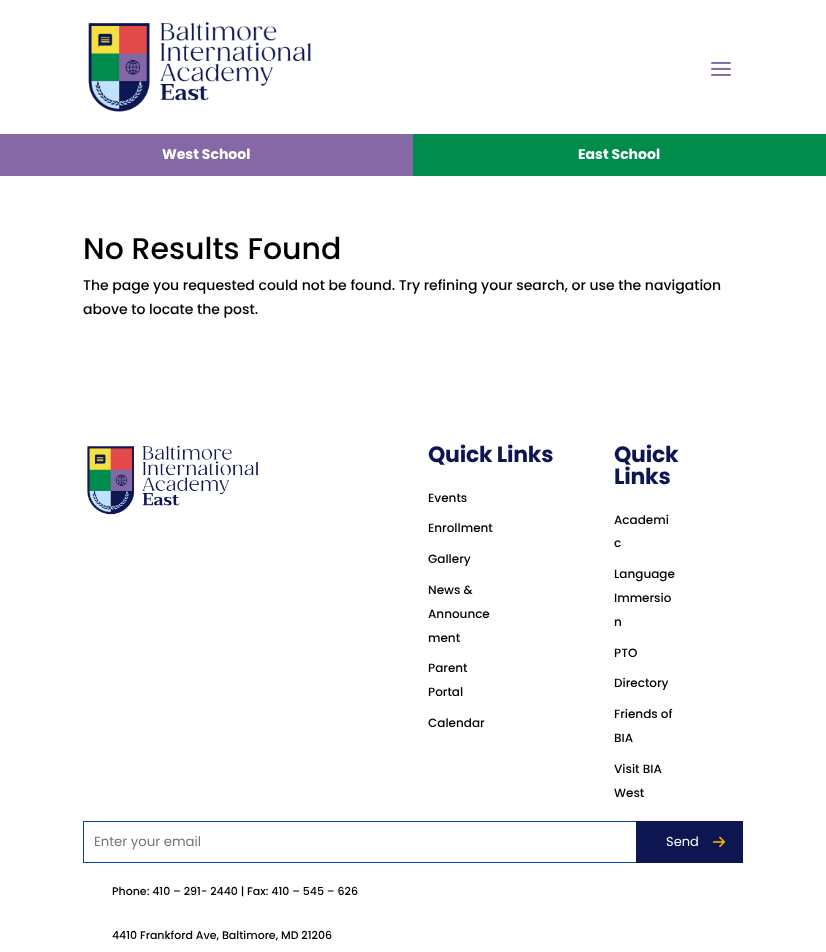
<svg xmlns="http://www.w3.org/2000/svg" width="826" height="952" viewBox="0 0 826 952">
  <rect width="100%" height="100%" fill="rgb(255,255,255)"/>
  <image x="88" y="22" width="224" height="90" href="pic1.png"/>
  <image x="711" y="61" width="20" height="15" href="pic2.png"/>
  <rect x="0" y="134" width="413" height="42" fill="rgb(133,105,166)"/>
  <text x="162" y="159" font-family="Poppins" font-size="14" font-weight="bold" fill="rgb(255,255,255)">West School</text>
  <rect x="413" y="134" width="413" height="42" fill="rgb(0,140,77)"/>
  <text x="578" y="159" font-family="Poppins" font-size="14" font-weight="bold" fill="rgb(255,255,255)">East School</text>
  <text x="83" y="259" font-family="Poppins" font-size="30" font-weight="500" fill="rgb(0,0,0)">No Results Found</text>
  <g font-family="Poppins" font-size="14" font-weight="500" fill="rgb(0,0,0)">
    <text>
      <tspan x="83" y="290">The page you requested could not be found. Try refining your search, or use the navigation</tspan>
      <tspan x="83" y="314">above to locate the post.</tspan>
    </text>
  </g>
  <image x="87" y="445" width="172" height="70" href="pic3.png"/>
  <text x="428" y="462" font-family="Poppins" font-size="22" font-weight="bold" letter-spacing="-0.25" fill="rgb(13,22,81)">Quick Links</text>
  <g font-family="Poppins" font-size="12" font-weight="500" fill="rgb(0,0,0)">
    <text x="428" y="502">Events</text>
    <text x="428" y="532">Enrollment</text>
    <text x="428" y="563">Gallery</text>
    <text x="428" y="594">News &amp;</text>
    <text x="428" y="618">Announce</text>
    <text x="428" y="642">ment</text>
    <text x="428" y="672">Parent</text>
    <text x="428" y="696">Portal</text>
    <text x="428" y="727">Calendar</text>
  </g>
  <g font-family="Poppins" font-size="22" font-weight="bold" letter-spacing="-0.25" fill="rgb(13,22,81)">
    <text>
      <tspan x="614" y="462">Quick</tspan>
      <tspan x="614" y="484">Links</tspan>
    </text>
  </g>
  <g font-family="Poppins" font-size="12" font-weight="500" fill="rgb(0,0,0)">
    <text>
      <tspan x="614" y="524">Academi</tspan>
      <tspan x="614" y="547">c</tspan>
    </text>
    <text x="614" y="578">Language</text>
    <text x="614" y="602">Immersio</text>
    <text x="614" y="626">n</text>
    <text x="614" y="657">PTO</text>
    <text x="614" y="687">Directory</text>
    <text x="614" y="718">Friends of</text>
    <text x="614" y="742">BIA</text>
    <text x="614" y="773">Visit BIA</text>
    <text x="614" y="797">West</text>
  </g>
  <rect x="83.5" y="821.5" width="659" height="41" fill="none" stroke="rgb(0,68,161)"/>
  <text x="94" y="846" font-family="Poppins" font-size="13.25" fill="rgb(117,117,117)">Enter your email</text>
  <rect x="636" y="821" width="107" height="42" fill="rgb(13,22,81)"/>
  <text x="666" y="846" font-family="Poppins" font-size="13" fill="rgb(255,255,255)">Send</text>
  <image x="713" y="836" width="13" height="12" href="pic4.png"/>
  <g font-family="Poppins" font-size="11" font-weight="500" fill="rgb(0,0,0)">
    <text x="112" y="895">Phone: 410 – 291- 2440 | Fax: 410 – 545 – 626</text>
    <text x="112" y="939">4410 Frankford Ave, Baltimore, MD 21206</text>
  </g>
</svg>
